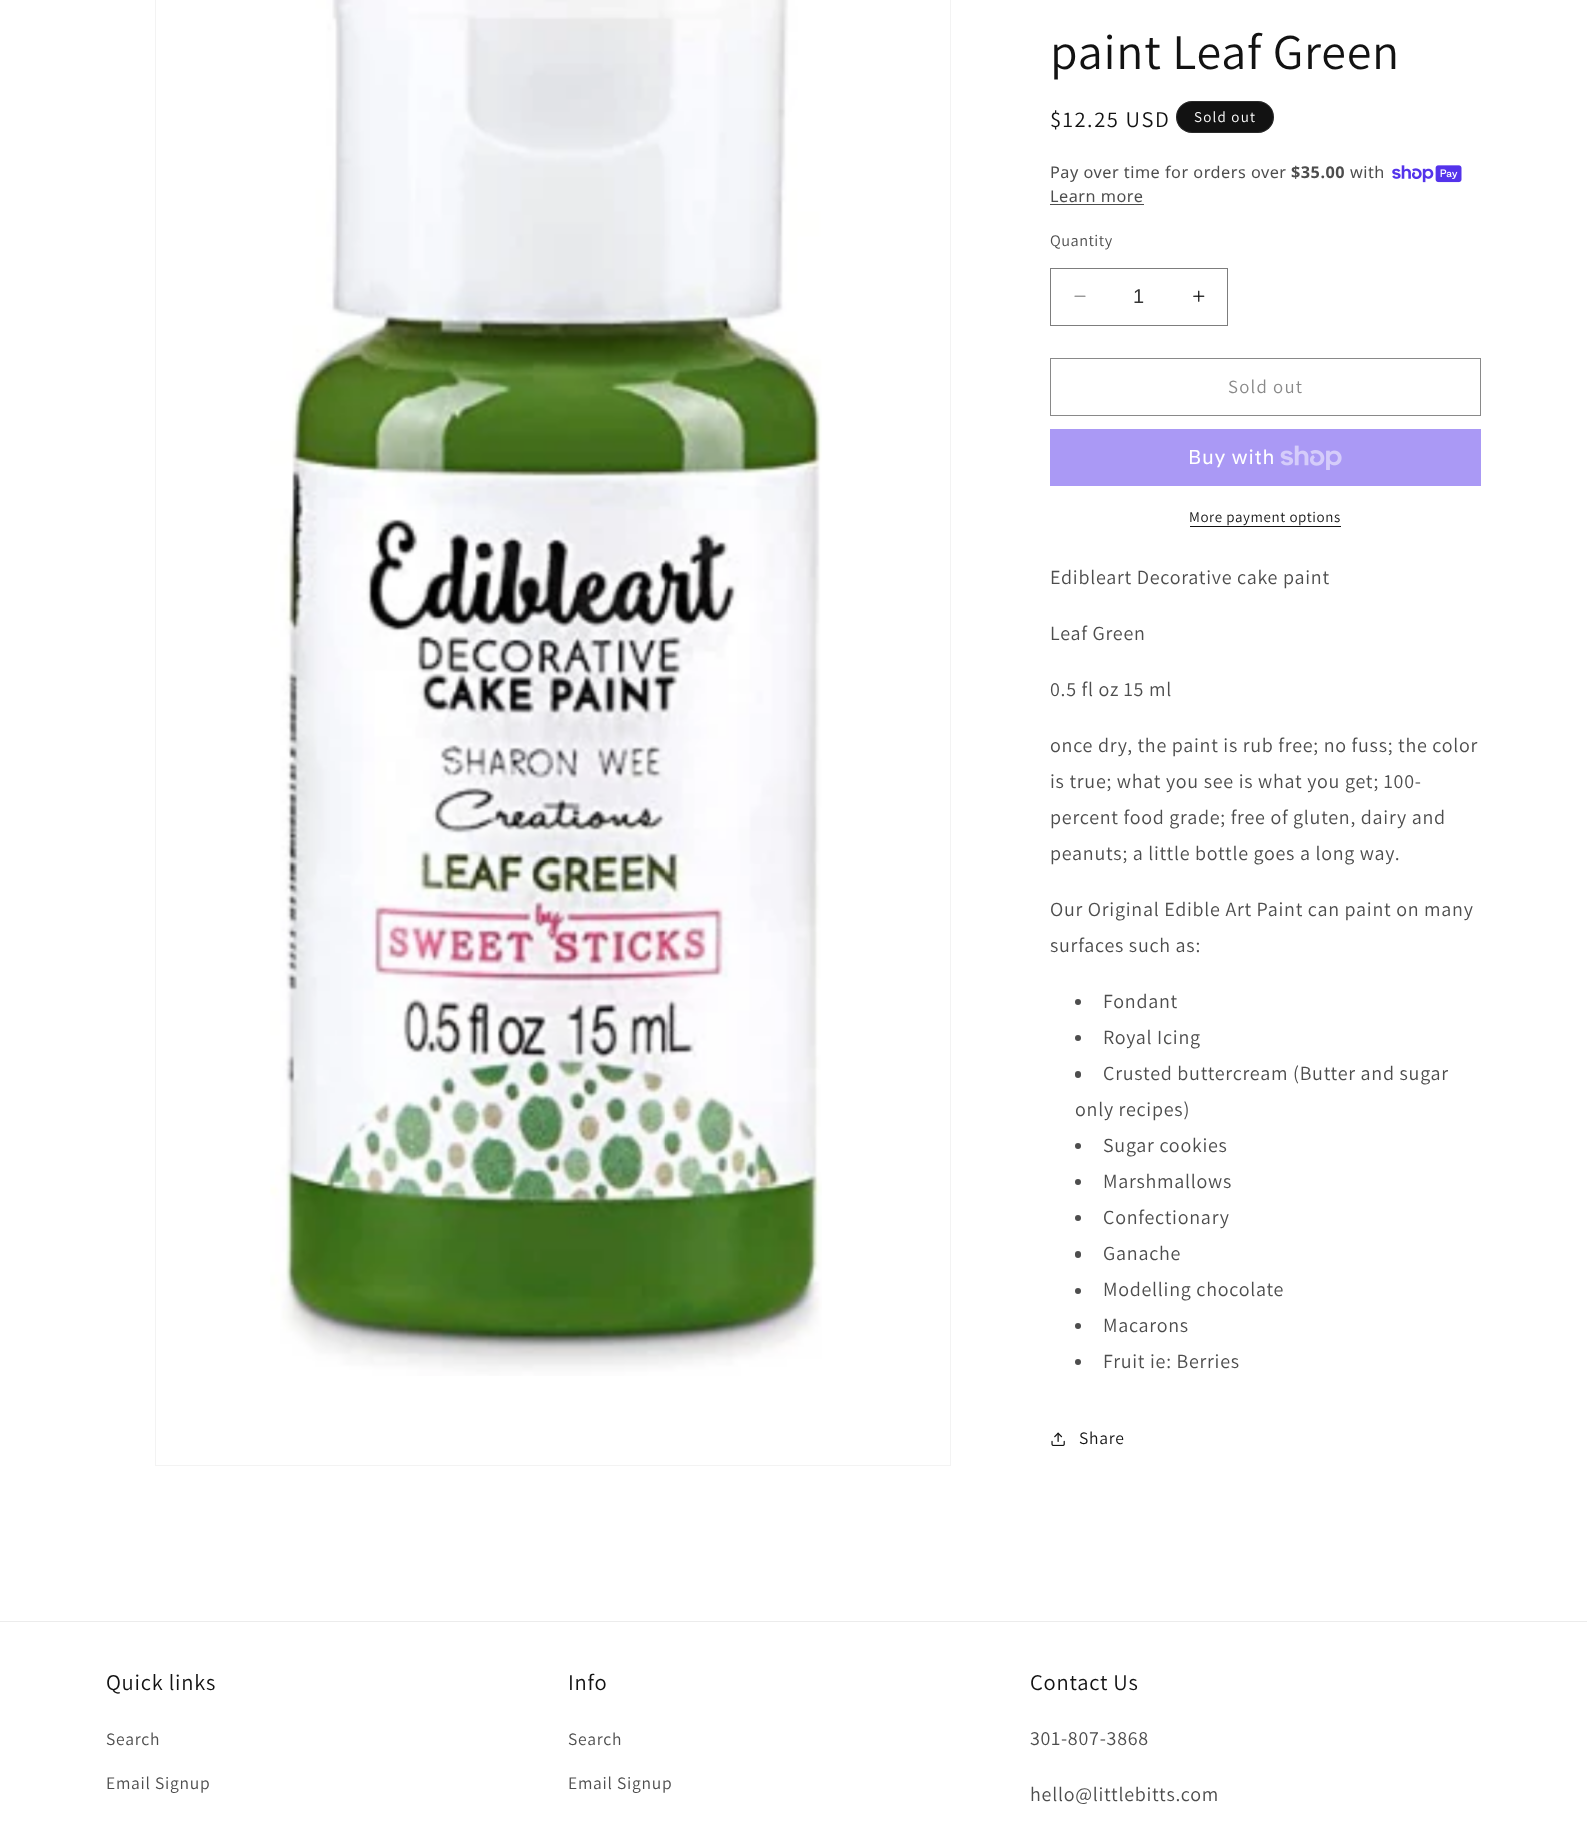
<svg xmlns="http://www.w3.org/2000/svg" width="1587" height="1835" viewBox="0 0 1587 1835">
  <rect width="100%" height="100%" fill="rgb(255,255,255)"/>
  <rect x="155.5" y="-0.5" width="795" height="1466" fill="none" stroke="rgb(243,243,243)"/>
  <image x="270" y="0" width="552" height="1376" href="pic1.png"/>
  <text x="1050" y="69" font-family="Assistant" font-size="50" letter-spacing="0.75" fill="rgb(18,18,18)">paint Leaf Green</text>
  <text x="1050" y="127" font-family="Assistant" font-size="22.5" letter-spacing="1.6" fill="rgb(18,18,18)">$12.25 USD</text>
  <rect x="1176" y="101" width="98" height="32" rx="16" fill="rgb(18,18,18)"/>
  <rect x="1176.5" y="101.5" width="97" height="31" rx="15.5" fill="none" stroke="rgba(255,255,255,0.1)"/>
  <text x="1194" y="122" font-family="Assistant" font-size="15" letter-spacing="1.25" fill="rgb(255,255,255)">Sold out</text>
  <text x="1050" y="178" font-family="Noto Sans" font-size="16.25" letter-spacing="0.5" fill="rgb(77,77,77)">Pay over time for orders over</text>
  <text x="1291" y="178" font-family="Noto Sans" font-size="16.25" font-weight="bold" letter-spacing="0.5" fill="rgb(77,77,77)">$35.00</text>
  <text x="1350" y="178" font-family="Noto Sans" font-size="16.25" letter-spacing="0.5" fill="rgb(77,77,77)">with</text>
  <image x="1392" y="165" width="70" height="18" href="pic2.png"/>
  <text x="1050" y="202" font-family="Noto Sans" font-size="16.25" letter-spacing="0.5" fill="rgb(77,77,77)">Learn more</text>
  <rect x="1050" y="204" width="94" height="1" fill="rgb(77,77,77)"/>
  <text x="1050" y="246" font-family="Assistant" font-size="16.25" letter-spacing="0.5" fill="rgb(77,77,77)">Quantity</text>
  <image x="1074" y="295" width="12" height="2" href="pic3.png"/>
  <image x="1193" y="290" width="12" height="12" href="pic4.png"/>
  <rect x="1050.5" y="268.5" width="177" height="57" fill="none" stroke="rgb(125,125,125)"/>
  <text x="1133" y="303" font-family="Liberation Sans" font-size="20" fill="rgb(54,54,54)">1</text>
  <rect x="1050.5" y="358.5" width="430" height="57" fill="none" stroke="rgb(137,137,137)"/>
  <text x="1228" y="393" font-family="Assistant" font-size="18.75" letter-spacing="1.25" fill="rgb(137,137,137)">Sold out</text>
  <rect x="1050" y="429" width="431" height="57" fill="rgb(170,153,245)"/>
  <text x="1188" y="464" font-family="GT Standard" font-size="20" letter-spacing="0.75" fill="rgb(255,255,255)">Buy with</text>
  <image x="1280" y="445" width="62" height="25" href="pic5.png"/>
  <text x="1189" y="522" font-family="Assistant" font-size="15" letter-spacing="0.6" fill="rgb(18,18,18)">More payment options</text>
  <rect x="1190" y="526" width="151" height="1" fill="rgb(18,18,18)"/>
  <g font-family="Assistant" font-size="20" letter-spacing="0.75" fill="rgb(77,77,77)">
    <text x="1050" y="584">Edibleart Decorative cake paint</text>
    <text x="1050" y="640">Leaf Green</text>
    <text x="1050" y="696">0.5 fl oz 15 ml</text>
    <text>
      <tspan x="1050" y="752">once dry, the paint is rub free; no fuss; the color</tspan>
      <tspan x="1050" y="788">is true; what you see is what you get; 100-</tspan>
      <tspan x="1050" y="824">percent food grade; free of gluten, dairy and</tspan>
      <tspan x="1050" y="860">peanuts; a little bottle goes a long way.</tspan>
    </text>
    <text>
      <tspan x="1050" y="916">Our Original Edible Art Paint can paint on many</tspan>
      <tspan x="1050" y="952">surfaces such as:</tspan>
    </text>
  </g>
  <circle cx="1078" cy="1002" r="3" fill="rgb(77,77,77)"/>
  <text x="1103" y="1008" font-family="Assistant" font-size="20" letter-spacing="0.75" fill="rgb(77,77,77)">Fondant</text>
  <circle cx="1078" cy="1038" r="3" fill="rgb(77,77,77)"/>
  <text x="1103" y="1044" font-family="Assistant" font-size="20" letter-spacing="0.75" fill="rgb(77,77,77)">Royal Icing</text>
  <rect x="1075" y="1071" width="6" height="7" rx="3" fill="rgb(77,77,77)"/>
  <g font-family="Assistant" font-size="20" letter-spacing="0.75" fill="rgb(77,77,77)">
    <text x="1103" y="1080">Crusted buttercream (Butter and sugar</text>
    <text x="1075" y="1116">only recipes)</text>
  </g>
  <circle cx="1078" cy="1146" r="3" fill="rgb(77,77,77)"/>
  <text x="1103" y="1152" font-family="Assistant" font-size="20" letter-spacing="0.75" fill="rgb(77,77,77)">Sugar cookies</text>
  <circle cx="1078" cy="1182" r="3" fill="rgb(77,77,77)"/>
  <text x="1103" y="1188" font-family="Assistant" font-size="20" letter-spacing="0.75" fill="rgb(77,77,77)">Marshmallows</text>
  <circle cx="1078" cy="1218" r="3" fill="rgb(77,77,77)"/>
  <text x="1103" y="1224" font-family="Assistant" font-size="20" letter-spacing="0.75" fill="rgb(77,77,77)">Confectionary</text>
  <rect x="1075" y="1251" width="6" height="7" rx="3" fill="rgb(77,77,77)"/>
  <text x="1103" y="1260" font-family="Assistant" font-size="20" letter-spacing="0.75" fill="rgb(77,77,77)">Ganache</text>
  <circle cx="1078" cy="1291" r="3" fill="rgb(77,77,77)"/>
  <text x="1103" y="1296" font-family="Assistant" font-size="20" letter-spacing="0.75" fill="rgb(77,77,77)">Modelling chocolate</text>
  <circle cx="1078" cy="1326" r="3" fill="rgb(77,77,77)"/>
  <text x="1103" y="1332" font-family="Assistant" font-size="20" letter-spacing="0.75" fill="rgb(77,77,77)">Macarons</text>
  <circle cx="1078" cy="1362" r="3" fill="rgb(77,77,77)"/>
  <text x="1103" y="1368" font-family="Assistant" font-size="20" letter-spacing="0.75" fill="rgb(77,77,77)">Fruit ie: Berries</text>
  <image x="1051" y="1432" width="14" height="14" href="pic6.png"/>
  <text x="1079" y="1444" font-family="Assistant" font-size="17.5" letter-spacing="0.75" fill="rgb(18,18,18)">Share</text>
  <rect x="0" y="1621" width="1587" height="1" fill="rgb(236,236,236)"/>
  <text x="106" y="1690" font-family="Assistant" font-size="22.5" letter-spacing="0.75" fill="rgb(18,18,18)">Quick links</text>
  <g font-family="Assistant" font-size="17.5" letter-spacing="0.75" fill="rgb(77,77,77)">
    <text x="106" y="1745">Search</text>
    <text x="106" y="1789">Email Signup</text>
  </g>
  <text x="568" y="1690" font-family="Assistant" font-size="22.5" letter-spacing="0.75" fill="rgb(18,18,18)">Info</text>
  <g font-family="Assistant" font-size="17.5" letter-spacing="0.75" fill="rgb(77,77,77)">
    <text x="568" y="1745">Search</text>
    <text x="568" y="1789">Email Signup</text>
  </g>
  <text x="1030" y="1690" font-family="Assistant" font-size="22.5" letter-spacing="0.75" fill="rgb(18,18,18)">Contact Us</text>
  <g font-family="Assistant" font-size="20" letter-spacing="0.75" fill="rgb(77,77,77)">
    <text x="1030" y="1745">301-807-3868</text>
    <text x="1030" y="1801">hello@littlebitts.com</text>
  </g>
</svg>
